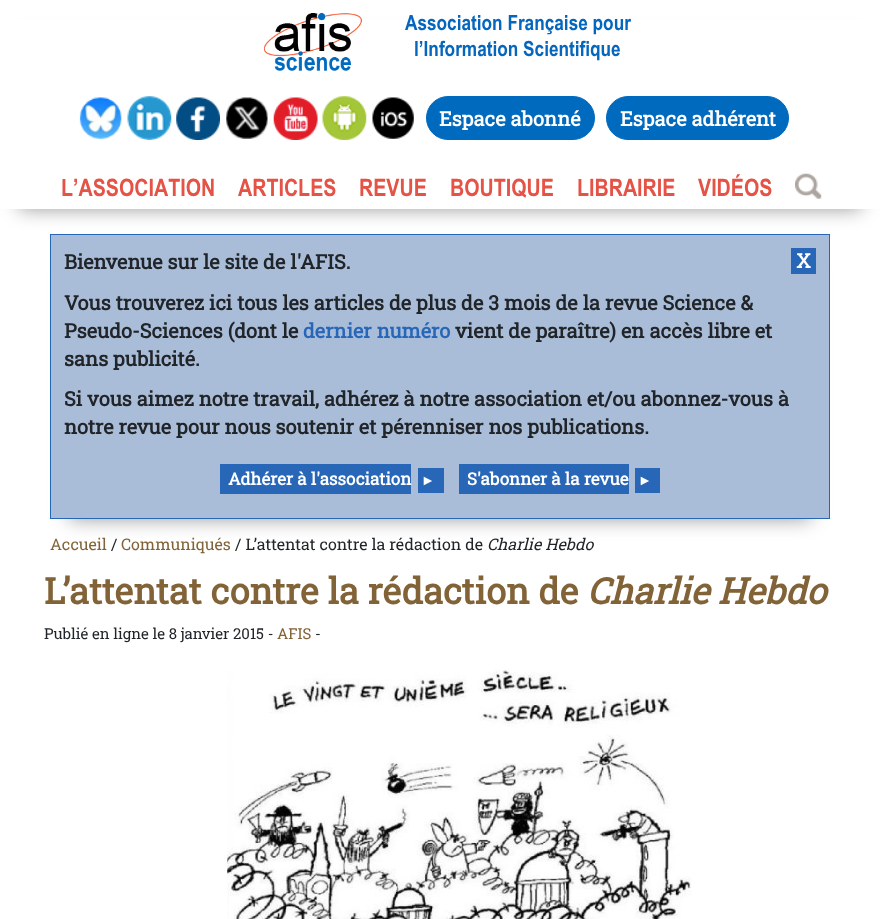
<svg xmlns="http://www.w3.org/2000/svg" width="880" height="919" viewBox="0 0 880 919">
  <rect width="100%" height="100%" fill="rgb(255,255,255)"/>
  <rect x="19" y="38" width="842" height="171" fill="rgba(0,0,0,0.4)" filter="blur(9.5px)"/>
  <rect x="0" y="19" width="880" height="190" fill="rgb(255,255,255)"/>
  <image x="264" y="12" width="98" height="59" href="pic1.png"/>
  <g font-family="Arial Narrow" font-size="21" font-weight="bold" fill="rgb(5,102,190)">
    <text x="405" y="30">Association Française pour</text>
    <text x="414" y="56">l’Information Scientifique</text>
  </g>
  <image x="79" y="97" width="43" height="42" href="pic2.png"/>
  <image x="127" y="96" width="45" height="44" href="pic3.png"/>
  <image x="176" y="97" width="44" height="43" href="pic4.png"/>
  <image x="226" y="97" width="42" height="42" href="pic5.png"/>
  <image x="273" y="97" width="45" height="43" href="pic6.png"/>
  <image x="322" y="96" width="45" height="44" href="pic7.png"/>
  <image x="372" y="97" width="42" height="42" href="pic8.png"/>
  <rect x="426.5" y="96.5" width="168" height="43" rx="21.5" fill="rgb(0,106,190)" stroke="rgb(0,106,190)"/>
  <text x="439" y="126" font-family="Roboto Slab" font-size="20" font-weight="bold" fill="rgb(255,255,255)">Espace abonné</text>
  <rect x="606.5" y="96.5" width="182" height="43" rx="21.5" fill="rgb(0,106,190)" stroke="rgb(0,106,190)"/>
  <text x="620" y="126" font-family="Roboto Slab" font-size="20" font-weight="bold" fill="rgb(255,255,255)">Espace adhérent</text>
  <g font-family="Arial Narrow" font-size="24" font-weight="bold" fill="rgb(228,83,69)">
    <text x="61" y="196">L’ASSOCIATION</text>
    <text x="238" y="196">ARTICLES</text>
    <text x="359" y="196">REVUE</text>
    <text x="450" y="196">BOUTIQUE</text>
    <text x="577" y="196">LIBRAIRIE</text>
    <text x="698" y="196">VIDÉOS</text>
  </g>
  <image x="795" y="173" width="27" height="26" href="pic9.png"/>
  <rect x="69" y="271" width="742" height="248" fill="rgba(0,0,0,0.4)" filter="blur(9.5px)"/>
  <rect x="50.5" y="234.5" width="779" height="284" fill="rgb(169,189,216)" stroke="rgb(40,102,184)"/>
  <text x="64" y="269" font-family="Roboto Slab" font-size="20" font-weight="bold" fill="rgb(33,37,41)">Bienvenue sur le site de l'AFIS.</text>
  <rect x="791" y="248" width="25" height="26" fill="rgb(40,102,184)"/>
  <text x="796" y="268" font-family="Roboto Slab" font-size="20" font-weight="bold" fill="rgb(255,255,255)">X</text>
  <g font-family="Roboto Slab" font-size="20" font-weight="bold" fill="rgb(33,37,41)">
    <text>
      <tspan x="64" y="310">Vous trouverez ici tous les articles de plus de 3 mois de la revue Science &amp;</tspan>
      <tspan x="64" y="338">Pseudo-Sciences (dont le</tspan>
    </text>
  </g>
  <text x="303" y="338" font-family="Roboto Slab" font-size="20" font-weight="bold" fill="rgb(40,102,184)">dernier numéro</text>
  <g font-family="Roboto Slab" font-size="20" font-weight="bold" fill="rgb(33,37,41)">
    <text x="455" y="338">vient de paraître) en accès libre et</text>
    <text x="64" y="366">sans publicité.</text>
    <text>
      <tspan x="64" y="406">Si vous aimez notre travail, adhérez à notre association et/ou abonnez-vous à</tspan>
      <tspan x="64" y="434">notre revue pour nous soutenir et pérenniser nos publications.</tspan>
    </text>
  </g>
  <rect x="220" y="464" width="191" height="30" fill="rgb(40,102,184)"/>
  <text x="228" y="485" font-family="Roboto Slab" font-size="17" font-weight="bold" fill="rgb(255,255,255)">Adhérer à l'association</text>
  <rect x="418" y="468" width="26" height="25" fill="rgb(40,102,184)"/>
  <text x="421" y="485" font-family="Liberation Serif" font-size="14" font-weight="bold" fill="rgb(255,255,255)">►</text>
  <rect x="459" y="464" width="170" height="30" fill="rgb(40,102,184)"/>
  <text x="467" y="485" font-family="Roboto Slab" font-size="17" font-weight="bold" fill="rgb(255,255,255)">S'abonner à la revue</text>
  <rect x="635" y="468" width="25" height="25" fill="rgb(40,102,184)"/>
  <text x="638" y="485" font-family="Liberation Serif" font-size="14" font-weight="bold" fill="rgb(255,255,255)">►</text>
  <text x="50" y="550" font-family="Roboto Slab" font-size="16" fill="rgb(130,99,55)">Accueil</text>
  <text x="111" y="550" font-family="Roboto Slab" font-size="16" fill="rgb(33,37,41)">/</text>
  <text x="121" y="550" font-family="Roboto Slab" font-size="16" fill="rgb(130,99,55)">Communiqués</text>
  <text x="235" y="550" font-family="Roboto Slab" font-size="16" fill="rgb(33,37,41)">/ L’attentat contre la rédaction de</text>
  <text x="487" y="550" font-family="Roboto Slab" font-size="16" font-style="italic" fill="rgb(33,37,41)">Charlie Hebdo</text>
  <text x="44" y="604" font-family="Roboto Slab" font-size="36" font-weight="bold" fill="rgb(130,99,55)">L’attentat contre la rédaction de</text>
  <text x="587" y="604" font-family="Roboto Slab" font-size="36" font-weight="bold" font-style="italic" fill="rgb(130,99,55)">Charlie Hebdo</text>
  <text x="44" y="639" font-family="Roboto Slab" font-size="15" fill="rgb(33,37,41)">Publié en ligne le 8 janvier 2015 -</text>
  <text x="277" y="639" font-family="Roboto Slab" font-size="15" fill="rgb(130,99,55)">AFIS</text>
  <text x="315" y="639" font-family="Roboto Slab" font-size="15" fill="rgb(33,37,41)">-</text>
  <image x="227" y="669" width="465" height="250" href="pic10.png"/>
</svg>
